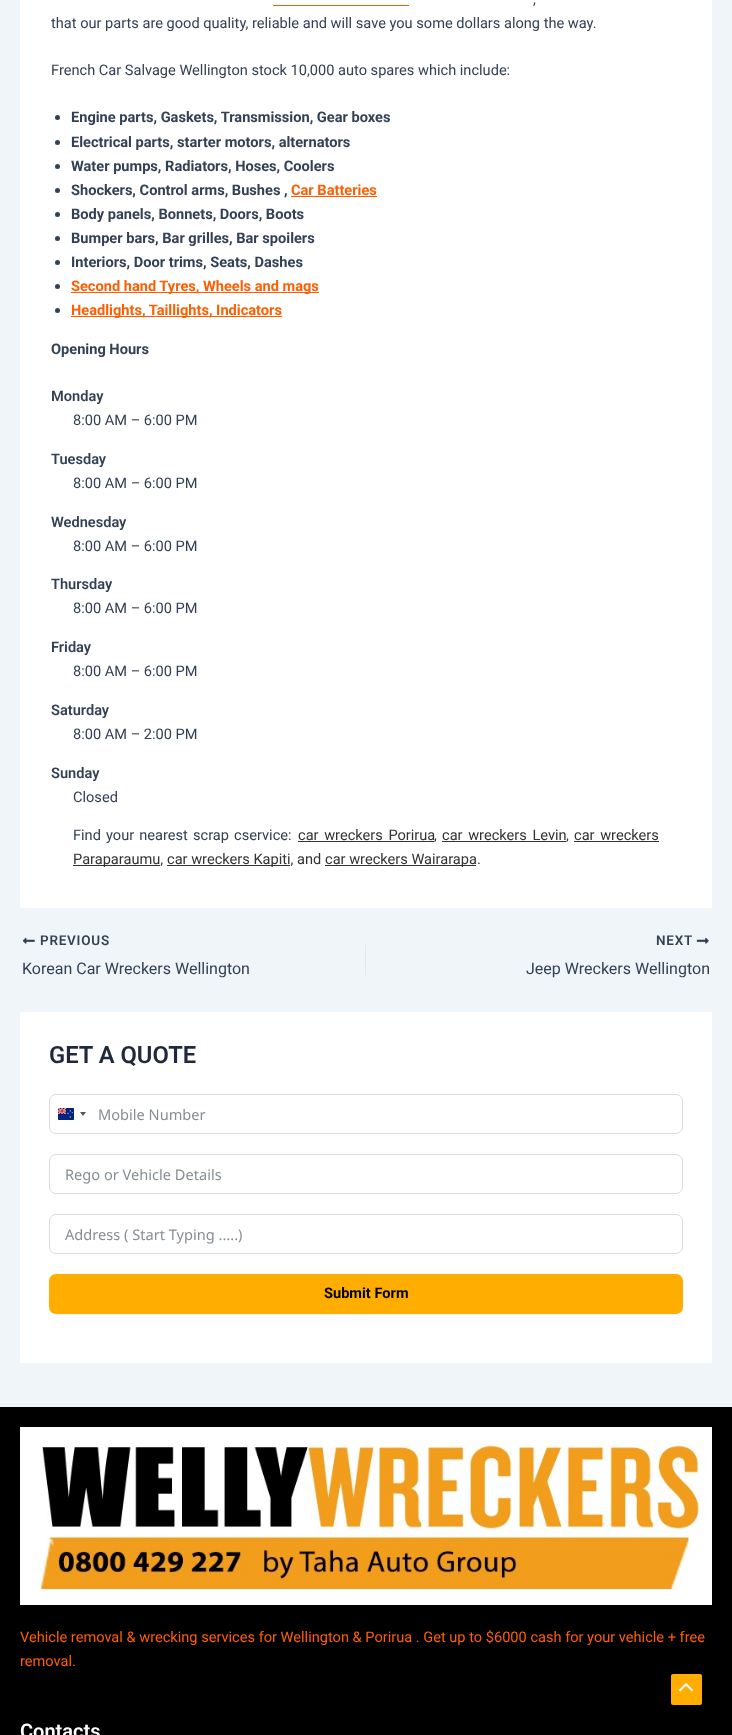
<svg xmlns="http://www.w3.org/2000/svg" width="732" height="1735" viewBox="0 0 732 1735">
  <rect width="100%" height="100%" fill="rgb(240,245,250)"/>
  <rect x="20" y="0" width="692" height="908" fill="rgb(255,255,255)"/>
  <rect x="273" y="5" width="136" height="1" fill="rgb(255,94,0)"/>
  <g font-family="Roboto" font-size="14.6" fill="rgb(51,65,85)">
    <text x="533" y="4">,</text>
    <text x="51" y="28">that our parts are good quality, reliable and will save you some dollars along the way.</text>
    <text x="51" y="75">French Car Salvage Wellington stock 10,000 auto spares which include:</text>
  </g>
  <circle cx="57.5" cy="117.5" r="2.5" fill="rgb(51,65,85)"/>
  <text x="71" y="122" font-family="Roboto" font-size="14.6" font-weight="bold" fill="rgb(51,65,85)">Engine parts, Gaskets, Transmission, Gear boxes</text>
  <circle cx="57.5" cy="142.5" r="2.5" fill="rgb(51,65,85)"/>
  <text x="71" y="147" font-family="Roboto" font-size="14.6" font-weight="bold" fill="rgb(51,65,85)">Electrical parts, starter motors, alternators</text>
  <circle cx="57.5" cy="166.5" r="2.5" fill="rgb(51,65,85)"/>
  <text x="71" y="171" font-family="Roboto" font-size="14.6" font-weight="bold" fill="rgb(51,65,85)">Water pumps, Radiators, Hoses, Coolers</text>
  <circle cx="57.5" cy="190.5" r="2.5" fill="rgb(51,65,85)"/>
  <text x="71" y="195" font-family="Roboto" font-size="14.6" font-weight="bold" fill="rgb(51,65,85)">Shockers, Control arms, Bushes ,</text>
  <text x="291" y="195" font-family="Roboto" font-size="14.6" font-weight="bold" fill="rgb(255,94,0)">Car Batteries</text>
  <rect x="291" y="196" width="86" height="1" fill="rgb(255,94,0)"/>
  <circle cx="57.5" cy="214.5" r="2.5" fill="rgb(51,65,85)"/>
  <text x="71" y="219" font-family="Roboto" font-size="14.6" font-weight="bold" fill="rgb(51,65,85)">Body panels, Bonnets, Doors, Boots</text>
  <circle cx="57.5" cy="238.5" r="2.5" fill="rgb(51,65,85)"/>
  <text x="71" y="243" font-family="Roboto" font-size="14.6" font-weight="bold" fill="rgb(51,65,85)">Bumper bars, Bar grilles, Bar spoilers</text>
  <circle cx="57.5" cy="262.5" r="2.5" fill="rgb(51,65,85)"/>
  <text x="71" y="267" font-family="Roboto" font-size="14.6" font-weight="bold" fill="rgb(51,65,85)">Interiors, Door trims, Seats, Dashes</text>
  <circle cx="57.5" cy="286.5" r="2.5" fill="rgb(51,65,85)"/>
  <rect x="71" y="292" width="248" height="1" fill="rgb(255,94,0)"/>
  <text x="71" y="291" font-family="Roboto" font-size="14.6" font-weight="bold" fill="rgb(255,94,0)">Second hand Tyres, Wheels and mags</text>
  <circle cx="57.5" cy="310.5" r="2.5" fill="rgb(51,65,85)"/>
  <rect x="71" y="316" width="211" height="1" fill="rgb(255,94,0)"/>
  <text x="71" y="315" font-family="Roboto" font-size="14.6" font-weight="bold" fill="rgb(255,94,0)">Headlights, Taillights, Indicators</text>
  <text x="51" y="354" font-family="Roboto" font-size="14.6" font-weight="bold" fill="rgb(51,65,85)">Opening Hours</text>
  <text x="51" y="401" font-family="Roboto" font-size="14.6" font-weight="600" fill="rgb(51,65,85)">Monday</text>
  <text x="73" y="425" font-family="Roboto" font-size="14.6" fill="rgb(51,65,85)">8:00 AM – 6:00 PM</text>
  <text x="51" y="464" font-family="Roboto" font-size="14.6" font-weight="600" fill="rgb(51,65,85)">Tuesday</text>
  <text x="73" y="488" font-family="Roboto" font-size="14.6" fill="rgb(51,65,85)">8:00 AM – 6:00 PM</text>
  <text x="51" y="527" font-family="Roboto" font-size="14.6" font-weight="600" fill="rgb(51,65,85)">Wednesday</text>
  <text x="73" y="551" font-family="Roboto" font-size="14.6" fill="rgb(51,65,85)">8:00 AM – 6:00 PM</text>
  <text x="51" y="589" font-family="Roboto" font-size="14.6" font-weight="600" fill="rgb(51,65,85)">Thursday</text>
  <text x="73" y="613" font-family="Roboto" font-size="14.6" fill="rgb(51,65,85)">8:00 AM – 6:00 PM</text>
  <text x="51" y="652" font-family="Roboto" font-size="14.6" font-weight="600" fill="rgb(51,65,85)">Friday</text>
  <text x="73" y="676" font-family="Roboto" font-size="14.6" fill="rgb(51,65,85)">8:00 AM – 6:00 PM</text>
  <text x="51" y="715" font-family="Roboto" font-size="14.6" font-weight="600" fill="rgb(51,65,85)">Saturday</text>
  <text x="73" y="739" font-family="Roboto" font-size="14.6" fill="rgb(51,65,85)">8:00 AM – 2:00 PM</text>
  <text x="51" y="778" font-family="Roboto" font-size="14.6" font-weight="600" fill="rgb(51,65,85)">Sunday</text>
  <g font-family="Roboto" font-size="14.6" fill="rgb(51,65,85)">
    <text x="73" y="802">Closed</text>
    <text x="73" y="840" word-spacing="1.5">Find your nearest scrap cservice:</text>
  </g>
  <g font-family="Roboto" font-size="14.6" fill="rgb(51,51,51)">
    <text x="298" y="840" word-spacing="2">car wreckers Porirua</text>
    <text x="434" y="840">,</text>
  </g>
  <rect x="298" y="841" width="136" height="1" fill="rgb(51,51,51)"/>
  <g font-family="Roboto" font-size="14.6" fill="rgb(51,51,51)">
    <text x="442" y="840" word-spacing="2">car wreckers Levin</text>
    <text x="566" y="840">,</text>
  </g>
  <rect x="442" y="841" width="124" height="1" fill="rgb(51,51,51)"/>
  <rect x="574" y="841" width="85" height="1" fill="rgb(51,51,51)"/>
  <text x="574" y="840" word-spacing="2" font-family="Roboto" font-size="14.6" fill="rgb(51,51,51)">car wreckers</text>
  <rect x="73" y="865" width="87" height="1" fill="rgb(51,51,51)"/>
  <text x="73" y="864" font-family="Roboto" font-size="14.6" fill="rgb(51,51,51)">Paraparaumu,</text>
  <rect x="167" y="865" width="123" height="1" fill="rgb(51,51,51)"/>
  <text x="167" y="864" font-family="Roboto" font-size="14.6" fill="rgb(51,51,51)">car wreckers Kapiti, and</text>
  <rect x="325" y="865" width="151" height="1" fill="rgb(51,51,51)"/>
  <text x="325" y="864" font-family="Roboto" font-size="14.6" fill="rgb(51,51,51)">car wreckers Wairarapa.</text>
  <image x="22" y="937" width="13" height="7" href="pic1.png"/>
  <text x="40" y="945" font-family="Roboto" font-size="13.5" font-weight="600" letter-spacing="0.75" fill="rgb(51,65,85)">PREVIOUS</text>
  <text x="22" y="974" font-family="Roboto" font-size="16" fill="rgb(51,65,85)">Korean Car Wreckers Wellington</text>
  <rect x="365" y="945" width="1" height="30" fill="rgb(225,232,237)"/>
  <text x="656" y="945" font-family="Roboto" font-size="13.5" font-weight="600" letter-spacing="0.75" fill="rgb(51,65,85)">NEXT</text>
  <image x="696" y="937" width="13" height="7" href="pic2.png"/>
  <text x="526" y="974" font-family="Roboto" font-size="16" fill="rgb(51,65,85)">Jeep Wreckers Wellington</text>
  <rect x="20" y="1012" width="692" height="351" fill="rgb(255,255,255)"/>
  <text x="49" y="1063" font-family="Roboto" font-size="23.75" font-weight="600" fill="rgb(30,41,59)">GET A QUOTE</text>
  <rect x="49.5" y="1094.5" width="633" height="39" rx="6.5" fill="none" stroke="rgb(218,219,221)"/>
  <rect x="58" y="1108" width="16" height="12" rx="1" fill="rgb(136,136,136)" filter="blur(0.5px)"/>
  <image x="58" y="1108" width="16" height="12" href="pic3.png"/>
  <path d="M80 1112H86L83 1116Z" fill="rgb(85,85,85)"/>
  <text x="98" y="1120" font-family="Noto Sans" font-size="14.6" fill="rgb(134,142,150)">Mobile Number</text>
  <rect x="49.5" y="1154.5" width="633" height="39" rx="6.5" fill="none" stroke="rgb(218,219,221)"/>
  <text x="65" y="1180" font-family="Noto Sans" font-size="14.6" fill="rgb(134,142,150)">Rego or Vehicle Details</text>
  <rect x="49.5" y="1214.5" width="633" height="39" rx="6.5" fill="none" stroke="rgb(218,219,221)"/>
  <text x="65" y="1240" font-family="Noto Sans" font-size="14.6" fill="rgb(134,142,150)">Address ( Start Typing .....)</text>
  <rect x="49" y="1275" width="634" height="40" rx="7" fill="rgba(0,0,0,0.05)" filter="blur(1px)"/>
  <rect x="49" y="1274" width="634" height="40" rx="7" fill="rgb(255,174,0)"/>
  <text x="324" y="1298" font-family="Roboto" font-size="14.6" font-weight="bold" fill="rgb(0,0,0)">Submit Form</text>
  <rect x="0" y="1407" width="732" height="328" fill="rgb(0,0,0)"/>
  <image x="20" y="1427" width="692" height="178" href="pic4.png"/>
  <g font-family="Roboto" font-size="14.6" fill="rgb(255,94,0)">
    <text>
      <tspan x="20" y="1642">Vehicle removal &amp; wrecking services for Wellington &amp; Porirua . Get up to $6000 cash for your vehicle + free</tspan>
      <tspan x="20" y="1666">removal.</tspan>
    </text>
  </g>
  <text x="20" y="1738" font-family="Roboto" font-size="20" font-weight="600" fill="rgb(255,255,255)">Contacts</text>
  <rect x="671" y="1674" width="31" height="31" rx="2" fill="rgb(255,174,0)"/>
  <image x="679" y="1683" width="15" height="9" href="pic5.png"/>
</svg>
